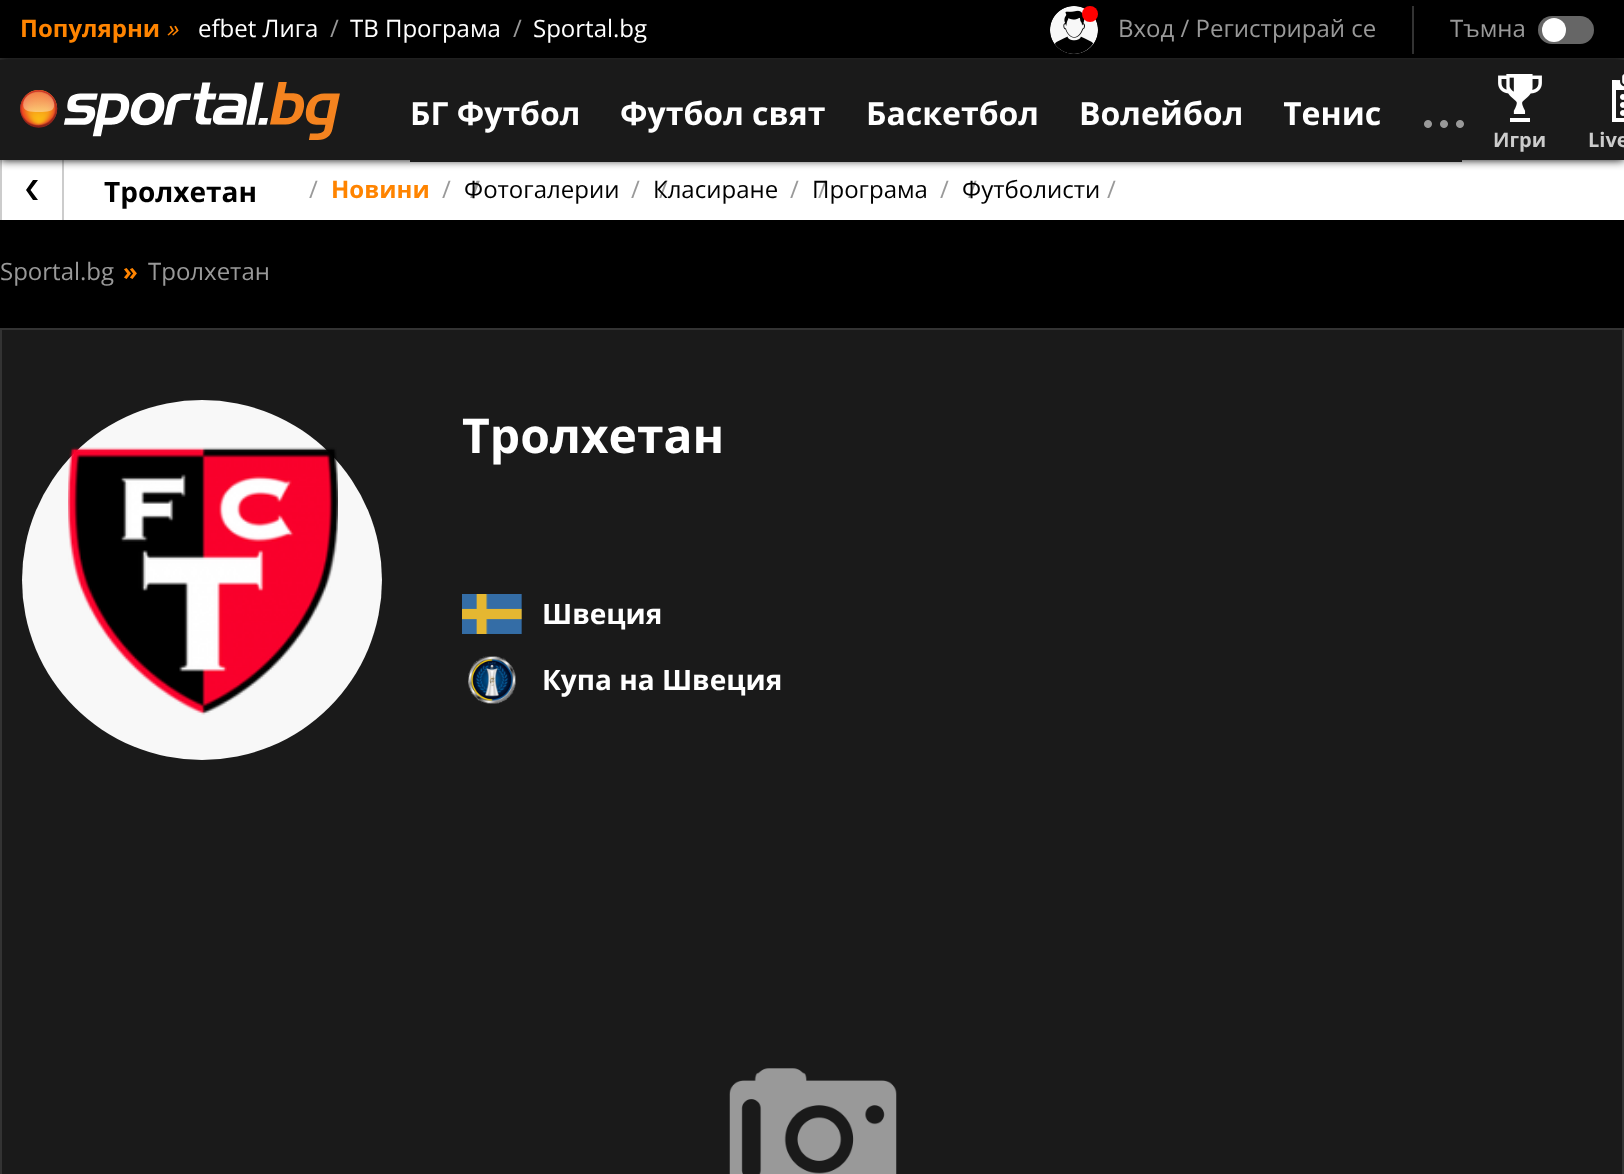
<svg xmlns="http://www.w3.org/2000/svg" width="1624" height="1174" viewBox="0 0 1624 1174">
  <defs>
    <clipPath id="clip1"><rect x="1284" y="66" width="98" height="96"/></clipPath>
  </defs>
  <rect width="100%" height="100%" fill="rgb(0,0,0)"/>
  <rect x="0" y="58" width="1624" height="2" fill="rgb(51,51,51)"/>
  <text x="20" y="37" font-family="Open Sans" font-size="24" font-weight="bold" fill="rgb(255,132,0)">Популярни</text>
  <text x="166" y="37" font-family="Open Sans" font-size="24" font-style="italic" fill="rgb(255,132,0)">»</text>
  <text x="198" y="37" font-family="Open Sans" font-size="24" fill="rgb(255,255,255)">efbet Лига</text>
  <text x="330" y="37" font-family="Open Sans" font-size="24" fill="rgb(153,153,153)">/</text>
  <text x="350" y="37" font-family="Open Sans" font-size="24" fill="rgb(255,255,255)">ТВ Програма</text>
  <text x="513" y="37" font-family="Open Sans" font-size="24" fill="rgb(153,153,153)">/</text>
  <text x="533" y="37" font-family="Open Sans" font-size="24" fill="rgb(255,255,255)">Sportal.bg</text>
  <image x="1050" y="6" width="48" height="48" href="pic1.png"/>
  <circle cx="1090" cy="14" r="8" fill="rgb(255,0,0)"/>
  <text x="1118" y="37" font-family="Open Sans" font-size="24" fill="rgb(153,153,153)">Вход / Регистрирай се</text>
  <rect x="1412" y="6" width="2" height="48" fill="rgb(51,51,51)"/>
  <text x="1450" y="37" font-family="Open Sans" font-size="24" fill="rgb(153,153,153)">Тъмна</text>
  <rect x="1538" y="16" width="56" height="28" rx="14" fill="rgb(102,102,102)"/>
  <circle cx="1554" cy="30" r="12" fill="rgb(255,255,255)"/>
  <rect x="2" y="160" width="1622" height="60" fill="rgb(255,255,255)"/>
  <rect x="62" y="160" width="2" height="60" fill="rgb(204,204,204)"/>
  <rect x="0" y="160" width="2" height="60" fill="rgb(204,204,204)"/>
  <rect x="0" y="60" width="1624" height="100" fill="rgba(0,0,0,0.99)" filter="blur(5px)"/>
  <rect x="0" y="60" width="1624" height="100" fill="rgb(26,26,26)"/>
  <image x="20" y="82" width="320" height="58" href="pic2.png"/>
  <rect x="410" y="160" width="1052" height="2" fill="rgb(26,26,26)"/>
  <g font-family="Open Sans" font-size="32" font-weight="bold" fill="rgb(255,255,255)">
    <text x="410" y="125">БГ Футбол</text>
    <text x="620" y="125">Футбол свят</text>
    <text x="866" y="125">Баскетбол</text>
    <text x="1079" y="125">Волейбол</text>
  </g>
  <g clip-path="url(#clip1)">
    <text x="1283" y="125" font-family="Open Sans" font-size="32" font-weight="bold" fill="rgb(255,255,255)">Тенис</text>
  </g>
  <image x="1424" y="120" width="40" height="8" href="pic3.png"/>
  <image x="1498" y="74" width="44" height="48" href="pic4.png"/>
  <text x="1493" y="147" font-family="Open Sans" font-size="20" font-weight="bold" fill="rgb(204,204,204)">Игри</text>
  <image x="1612" y="74" width="12" height="48" href="pic5.png"/>
  <text x="1588" y="147" font-family="Open Sans" font-size="20" font-weight="bold" fill="rgb(204,204,204)">Live</text>
  <path d="M38 200L30.5 190L38 180H33L26 190L33 200Z" fill="rgb(0,0,0)" fill-rule="evenodd"/>
  <text x="104" y="202" font-family="Open Sans" font-size="28" font-weight="bold" fill="rgb(0,0,0)">Тролхетан</text>
  <text x="309" y="198" font-family="Open Sans" font-size="24" fill="rgb(153,153,153)">/</text>
  <text x="331" y="198" font-family="Open Sans" font-size="24" font-weight="bold" fill="rgb(255,132,0)">Новини</text>
  <text x="470" y="198" font-family="Open Sans" font-size="24" font-weight="bold" fill="rgb(153,153,153)">/</text>
  <text x="442" y="198" font-family="Open Sans" font-size="24" fill="rgb(153,153,153)">/</text>
  <text x="464" y="198" font-family="Open Sans" font-size="24" fill="rgb(0,0,0)">Фотогалерии</text>
  <g font-family="Open Sans" font-size="24" fill="rgb(153,153,153)">
    <text x="659" y="198">/</text>
    <text x="631" y="198">/</text>
  </g>
  <text x="653" y="198" font-family="Open Sans" font-size="24" fill="rgb(0,0,0)">Класиране</text>
  <g font-family="Open Sans" font-size="24" fill="rgb(153,153,153)">
    <text x="818" y="198">/</text>
    <text x="790" y="198">/</text>
  </g>
  <text x="812" y="198" font-family="Open Sans" font-size="24" fill="rgb(0,0,0)">Програма</text>
  <g font-family="Open Sans" font-size="24" fill="rgb(153,153,153)">
    <text x="968" y="198">/</text>
    <text x="940" y="198">/</text>
  </g>
  <text x="962" y="198" font-family="Open Sans" font-size="24" fill="rgb(0,0,0)">Футболисти</text>
  <g font-family="Open Sans" font-size="24" fill="rgb(153,153,153)">
    <text x="1107" y="198">/</text>
    <text x="0" y="280">Sportal.bg</text>
  </g>
  <text x="123" y="280" font-family="Open Sans" font-size="24" font-weight="bold" fill="rgb(255,132,0)">»</text>
  <text x="148" y="280" font-family="Open Sans" font-size="24" fill="rgb(153,153,153)">Тролхетан</text>
  <rect x="1" y="329" width="1622" height="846" fill="rgb(26,26,26)" stroke="rgb(51,51,51)" stroke-width="2"/>
  <circle cx="202" cy="580" r="180" fill="rgb(248,248,248)"/>
  <image x="68" y="447" width="270" height="268" href="pic6.png"/>
  <text x="462" y="453" font-family="Open Sans" font-size="48" font-weight="bold" fill="rgb(255,255,255)">Тролхетан</text>
  <image x="462" y="594" width="60" height="40" href="pic7.png"/>
  <text x="542" y="624" font-family="Open Sans" font-size="28" font-weight="bold" fill="rgb(255,255,255)">Швеция</text>
  <image x="468" y="656" width="48" height="48" href="pic8.png"/>
  <text x="542" y="690" font-family="Open Sans" font-size="28" font-weight="bold" fill="rgb(255,255,255)">Купа на Швеция</text>
  <image x="729" y="1068" width="168" height="106" href="pic9.png"/>
</svg>
